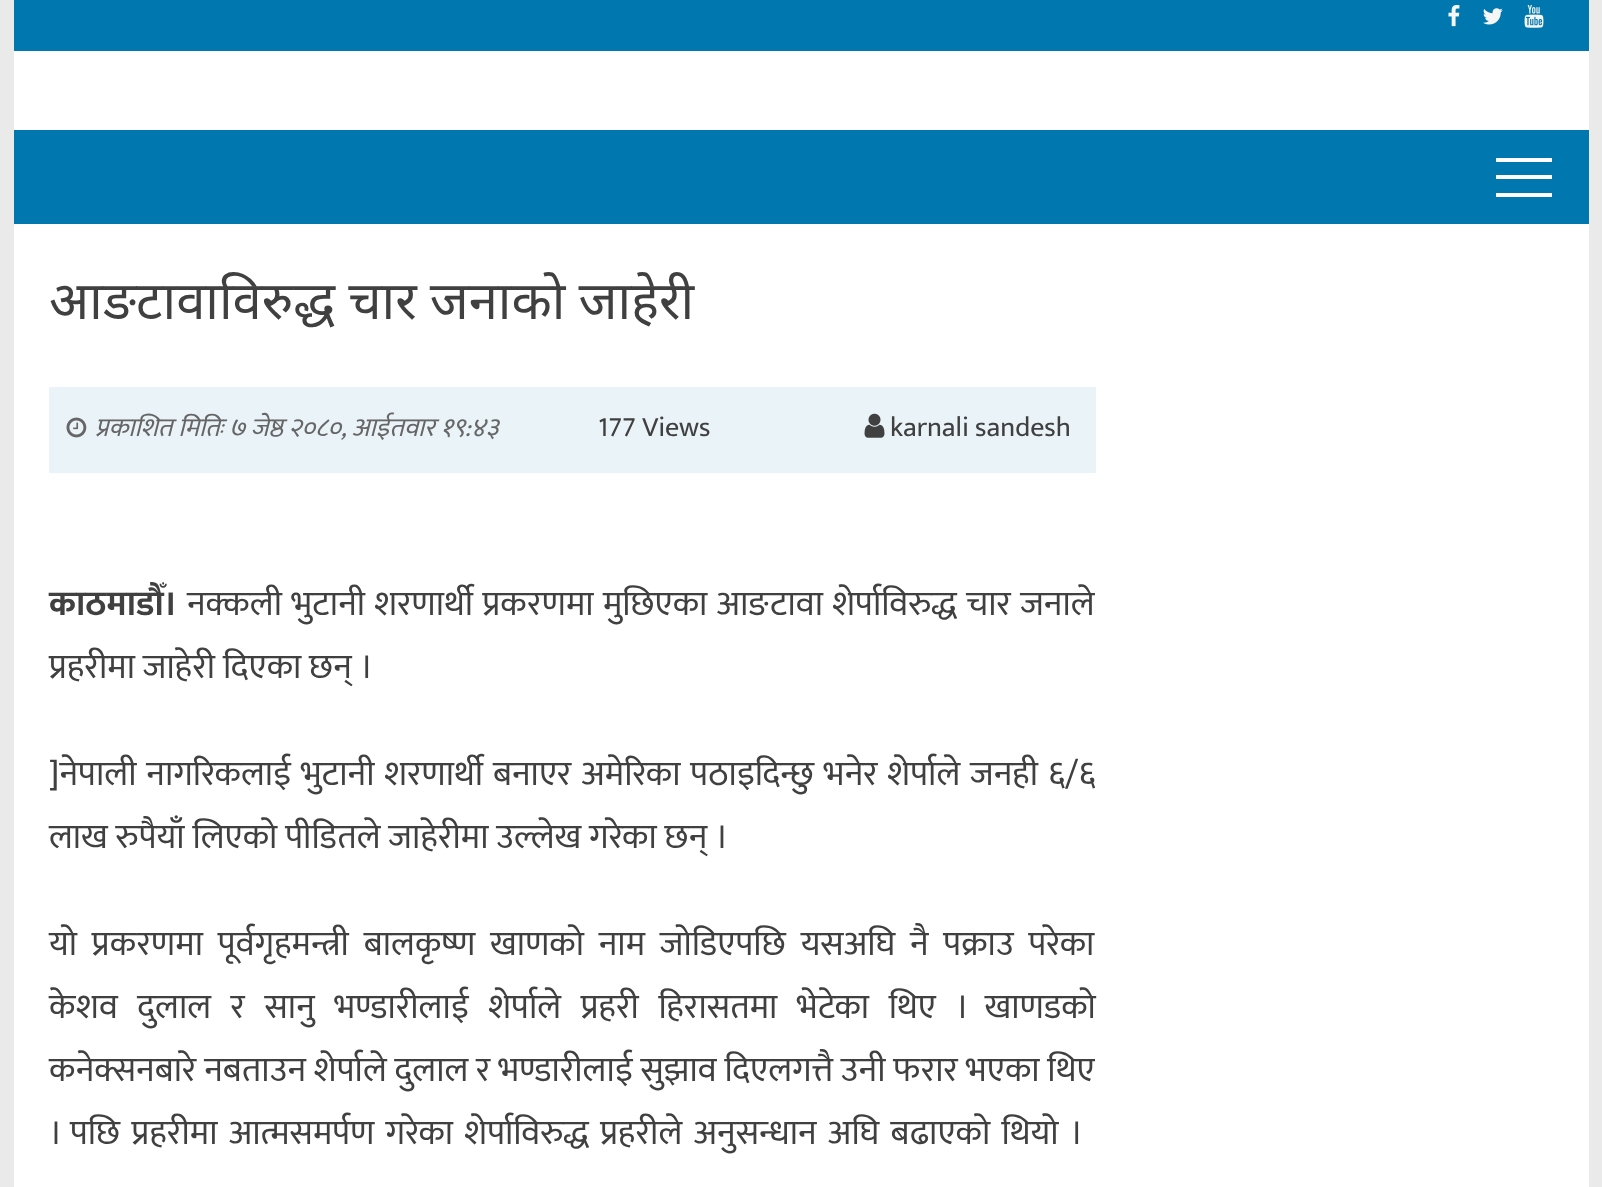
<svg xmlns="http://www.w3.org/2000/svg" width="1602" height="1187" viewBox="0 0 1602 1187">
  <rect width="100%" height="100%" fill="rgb(234,234,234)"/>
  <rect x="14" y="51" width="1575" height="1136" fill="rgb(255,255,255)"/>
  <rect x="14" y="0" width="1575" height="51" fill="rgb(0,120,175)"/>
  <image x="1448" y="5" width="12" height="22" href="pic1.png"/>
  <image x="1483" y="8" width="20" height="17" href="pic2.png"/>
  <image x="1524" y="5" width="20" height="23" href="pic3.png"/>
  <rect x="14" y="130" width="1575" height="94" fill="rgb(0,120,175)"/>
  <rect x="1496" y="158" width="56" height="4" fill="rgb(255,255,255)"/>
  <rect x="1496" y="193" width="56" height="4" fill="rgb(255,255,255)"/>
  <rect x="1496" y="175" width="56" height="4" fill="rgb(255,255,255)"/>
  <text x="49" y="319" word-spacing="-0.5" font-family="Noto Sans" font-size="52.5" fill="rgb(64,64,64)">आङटावाविरुद्ध चार जनाको जाहेरी</text>
  <rect x="49" y="387" width="1047" height="86" fill="rgb(234,243,248)"/>
  <image x="66" y="417" width="21" height="21" href="pic4.png"/>
  <g font-family="Ek Mukta" font-size="26.25" font-style="italic" fill="rgb(102,102,102)">
    <text x="95" y="436">प्रकाशित मितिः</text>
    <text x="229" y="436" word-spacing="-0.5">७ जेष्ठ २०८०, आईतवार १९:४३</text>
  </g>
  <text x="598" y="436" font-family="Ek Mukta" font-size="28" fill="rgb(64,64,64)">177 Views</text>
  <image x="864" y="413" width="21" height="25" href="pic5.png"/>
  <text x="890" y="436" font-family="Ek Mukta" font-size="28" fill="rgb(64,64,64)">karnali sandesh</text>
  <text x="49" y="615" font-family="Ek Mukta" font-size="35" font-weight="bold" fill="rgb(64,64,64)">काठमाडौँ।</text>
  <g font-family="Ek Mukta" font-size="35" fill="rgb(64,64,64)">
    <text x="187" y="615" word-spacing="1.5">नक्कली भुटानी शरणार्थी प्रकरणमा मुछिएका आङटावा शेर्पाविरुद्ध चार जनाले</text>
    <text x="49" y="678">प्रहरीमा जाहेरी दिएका छन् ।</text>
    <text>
      <tspan x="49" y="785" word-spacing="2">]नेपाली नागरिकलाई भुटानी शरणार्थी बनाएर अमेरिका पठाइदिन्छु भनेर शेर्पाले जनही ६/६</tspan>
      <tspan x="49" y="848">लाख रुपैयाँ लिएको पीडितले जाहेरीमा उल्लेख गरेका छन् ।</tspan>
    </text>
    <text>
      <tspan x="49" y="955" word-spacing="7">यो प्रकरणमा पूर्वगृहमन्त्री बालकृष्ण खाणको नाम जोडिएपछि यसअघि नै पक्राउ परेका</tspan>
      <tspan x="49" y="1018" word-spacing="11.75">केशव दुलाल र सानु भण्डारीलाई शेर्पाले प्रहरी हिरासतमा भेटेका थिए । खाणडको</tspan>
      <tspan x="49" y="1081">कनेक्सनबारे नबताउन शेर्पाले दुलाल र भण्डारीलाई सुझाव दिएलगत्तै उनी फरार भएका थिए</tspan>
      <tspan x="49" y="1144" word-spacing="3.4">। पछि प्रहरीमा आत्मसमर्पण गरेका शेर्पाविरुद्ध प्रहरीले अनुसन्धान अघि बढाएको थियो ।</tspan>
    </text>
  </g>
</svg>
